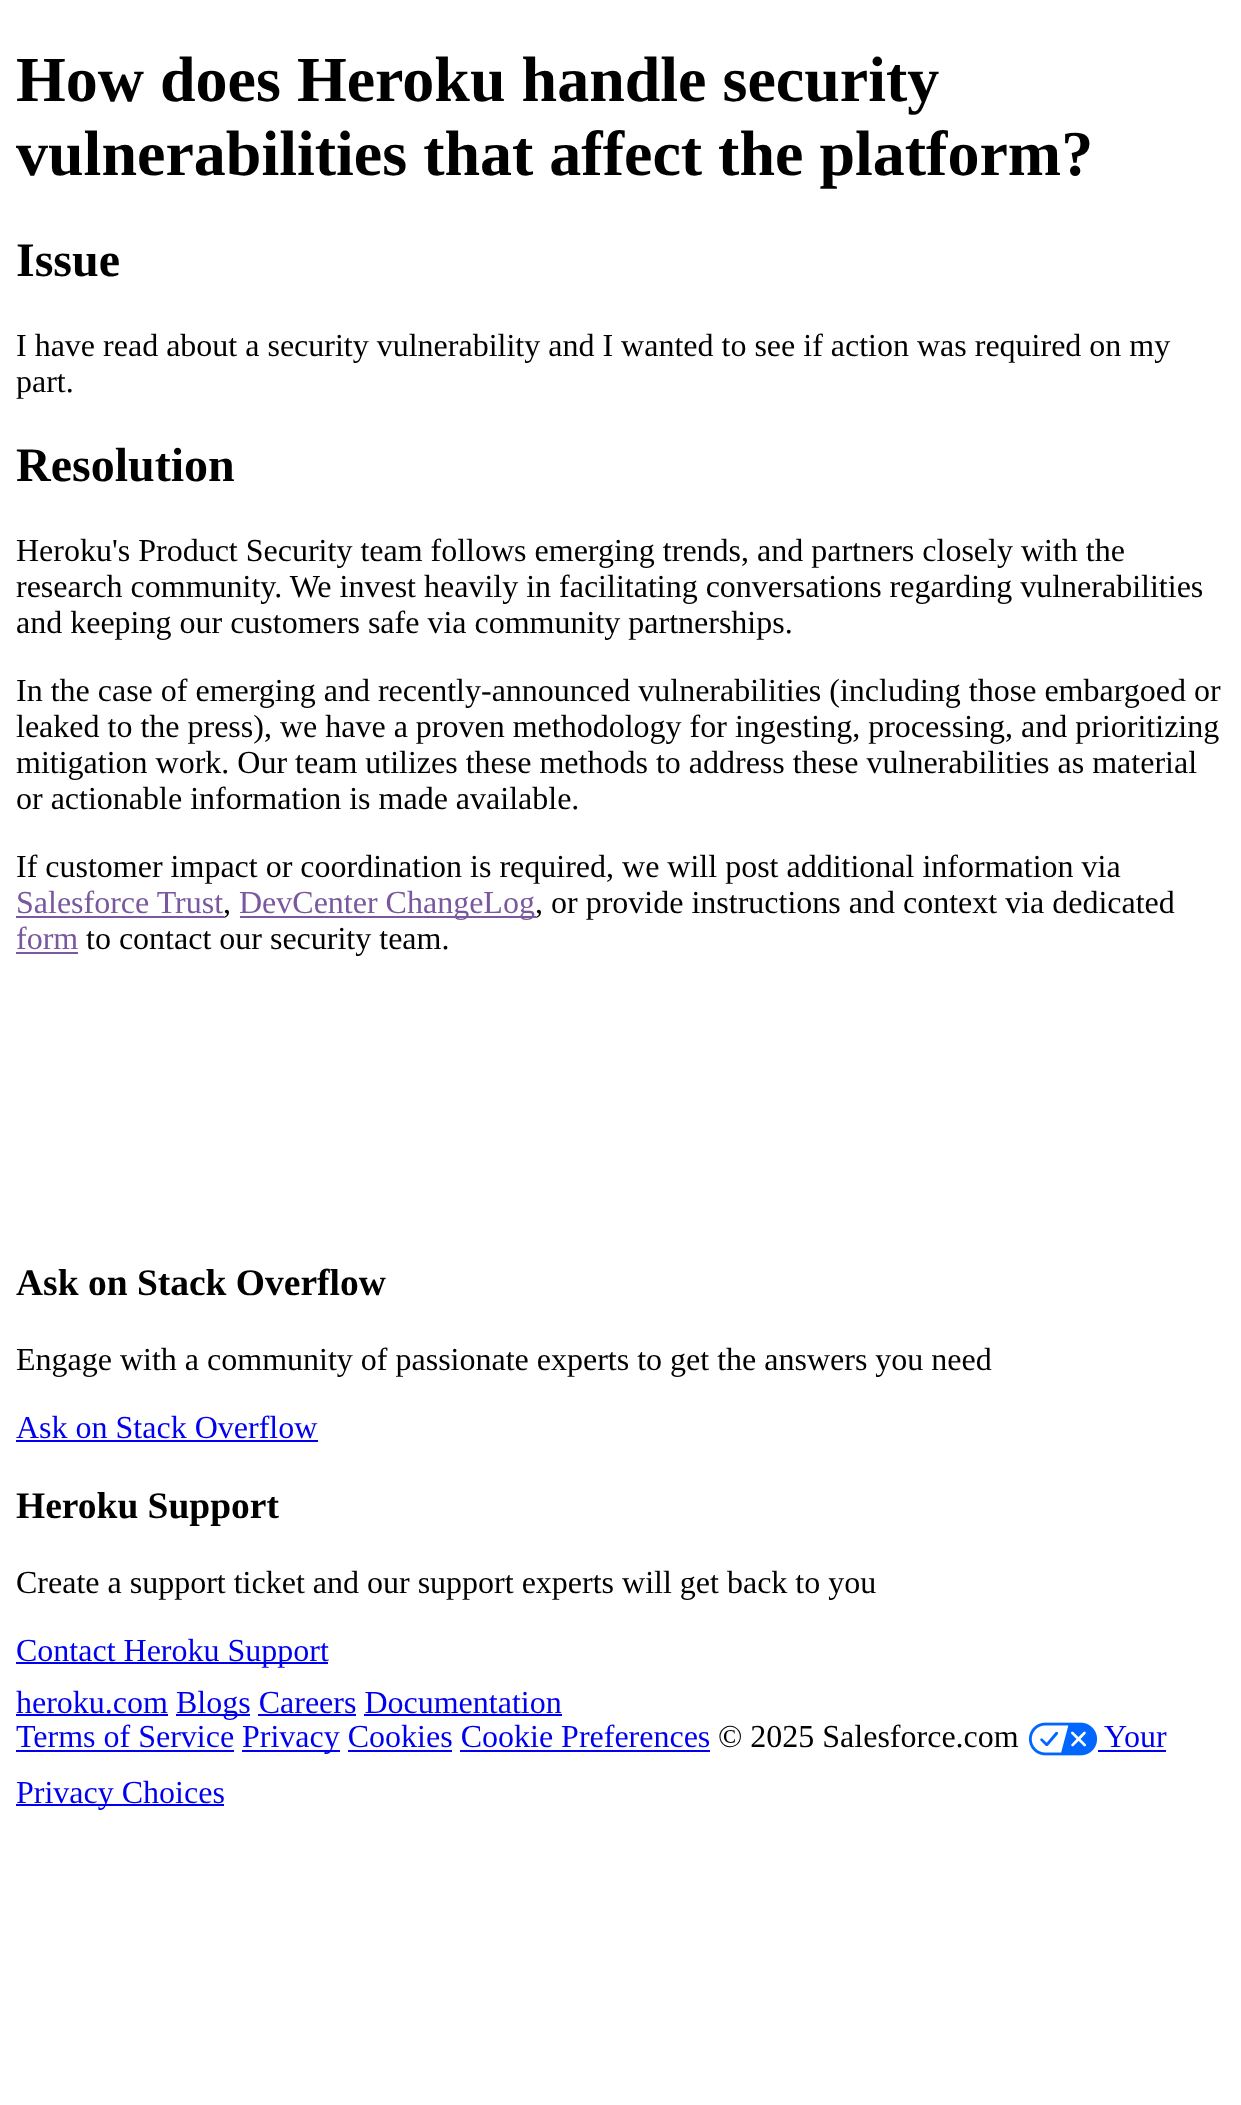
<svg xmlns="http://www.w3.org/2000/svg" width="1241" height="2105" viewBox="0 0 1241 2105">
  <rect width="100%" height="100%" fill="rgb(255,255,255)"/>
  <g font-family="Liberation Serif" font-size="64" font-weight="bold" fill="rgb(0,0,0)">
    <text>
      <tspan x="16" y="101">How does Heroku handle security</tspan>
      <tspan x="16" y="175">vulnerabilities that affect the platform?</tspan>
    </text>
  </g>
  <text x="16" y="276" font-family="Liberation Serif" font-size="48" font-weight="bold" fill="rgb(0,0,0)">Issue</text>
  <g font-family="Liberation Serif" font-size="32" fill="rgb(0,0,0)">
    <text>
      <tspan x="16" y="356">I have read about a security vulnerability and I wanted to see if action was required on my</tspan>
      <tspan x="16" y="392">part.</tspan>
    </text>
  </g>
  <text x="16" y="481" font-family="Liberation Serif" font-size="48" font-weight="bold" fill="rgb(0,0,0)">Resolution</text>
  <g font-family="Liberation Serif" font-size="32" fill="rgb(0,0,0)">
    <text>
      <tspan x="16" y="561">Heroku's Product Security team follows emerging trends, and partners closely with the</tspan>
      <tspan x="16" y="597">research community. We invest heavily in facilitating conversations regarding vulnerabilities</tspan>
      <tspan x="16" y="633">and keeping our customers safe via community partnerships.</tspan>
    </text>
    <text>
      <tspan x="16" y="701">In the case of emerging and recently-announced vulnerabilities (including those embargoed or</tspan>
      <tspan x="16" y="737">leaked to the press), we have a proven methodology for ingesting, processing, and prioritizing</tspan>
      <tspan x="16" y="773">mitigation work. Our team utilizes these methods to address these vulnerabilities as material</tspan>
      <tspan x="16" y="809">or actionable information is made available.</tspan>
    </text>
    <text x="16" y="877">If customer impact or coordination is required, we will post additional information via</text>
  </g>
  <text x="16" y="913" font-family="Liberation Serif" font-size="32" fill="rgb(121,88,159)">Salesforce Trust</text>
  <rect x="16" y="916" width="208" height="2" fill="rgb(121,88,159)"/>
  <text x="223" y="913" font-family="Liberation Serif" font-size="32" fill="rgb(0,0,0)">,</text>
  <rect x="240" y="916" width="296" height="2" fill="rgb(121,88,159)"/>
  <text x="239" y="913" font-family="Liberation Serif" font-size="32" fill="rgb(121,88,159)">DevCenter ChangeLog</text>
  <text x="535" y="913" font-family="Liberation Serif" font-size="32" fill="rgb(0,0,0)">, or provide instructions and context via dedicated</text>
  <text x="16" y="949" font-family="Liberation Serif" font-size="32" fill="rgb(121,88,159)">form</text>
  <rect x="16" y="952" width="62" height="2" fill="rgb(121,88,159)"/>
  <text x="86" y="949" font-family="Liberation Serif" font-size="32" fill="rgb(0,0,0)">to contact our security team.</text>
  <text x="16" y="1295" font-family="Liberation Serif" font-size="37.5" font-weight="bold" fill="rgb(0,0,0)">Ask on Stack Overflow</text>
  <text x="16" y="1370" font-family="Liberation Serif" font-size="32" fill="rgb(0,0,0)">Engage with a community of passionate experts to get the answers you need</text>
  <text x="16" y="1438" font-family="Liberation Serif" font-size="32" fill="rgb(0,0,238)">Ask on Stack Overflow</text>
  <rect x="16" y="1440" width="302" height="2" fill="rgb(0,0,238)"/>
  <text x="16" y="1518" font-family="Liberation Serif" font-size="37.5" font-weight="bold" fill="rgb(0,0,0)">Heroku Support</text>
  <text x="16" y="1593" font-family="Liberation Serif" font-size="32" fill="rgb(0,0,0)">Create a support ticket and our support experts will get back to you</text>
  <rect x="16" y="1662" width="312" height="2" fill="rgb(0,0,238)"/>
  <g font-family="Liberation Serif" font-size="32" fill="rgb(0,0,238)">
    <text>
      <tspan x="16" y="1661">Contact Heroku Support</tspan>
      <tspan x="16" y="1713">heroku.com</tspan>
    </text>
  </g>
  <rect x="16" y="1714" width="152" height="2" fill="rgb(0,0,238)"/>
  <rect x="176" y="1714" width="74" height="2" fill="rgb(0,0,238)"/>
  <text x="176" y="1713" font-family="Liberation Serif" font-size="32" fill="rgb(0,0,238)">Blogs Careers Documentation</text>
  <rect x="258" y="1714" width="98" height="2" fill="rgb(0,0,238)"/>
  <rect x="364" y="1714" width="198" height="2" fill="rgb(0,0,238)"/>
  <text x="16" y="1747" font-family="Liberation Serif" font-size="32" fill="rgb(0,0,238)">Terms of Service</text>
  <rect x="16" y="1750" width="218" height="2" fill="rgb(0,0,238)"/>
  <rect x="242" y="1750" width="98" height="2" fill="rgb(0,0,238)"/>
  <text x="242" y="1747" font-family="Liberation Serif" font-size="32" fill="rgb(0,0,238)">Privacy Cookies Cookie Preferences</text>
  <text x="718" y="1747" font-family="Liberation Serif" font-size="32" fill="rgb(0,0,0)">© 2025 Salesforce.com</text>
  <image x="1028" y="1722" width="70" height="34" href="pic1.png"/>
  <text x="1104" y="1747" font-family="Liberation Serif" font-size="32" fill="rgb(0,0,238)">Your</text>
  <rect x="1098" y="1750" width="68" height="2" fill="rgb(0,0,238)"/>
  <rect x="348" y="1750" width="104" height="2" fill="rgb(0,0,238)"/>
  <rect x="460" y="1750" width="250" height="2" fill="rgb(0,0,238)"/>
  <rect x="16" y="1804" width="208" height="2" fill="rgb(0,0,238)"/>
  <text x="16" y="1803" font-family="Liberation Serif" font-size="32" fill="rgb(0,0,238)">Privacy Choices</text>
</svg>
